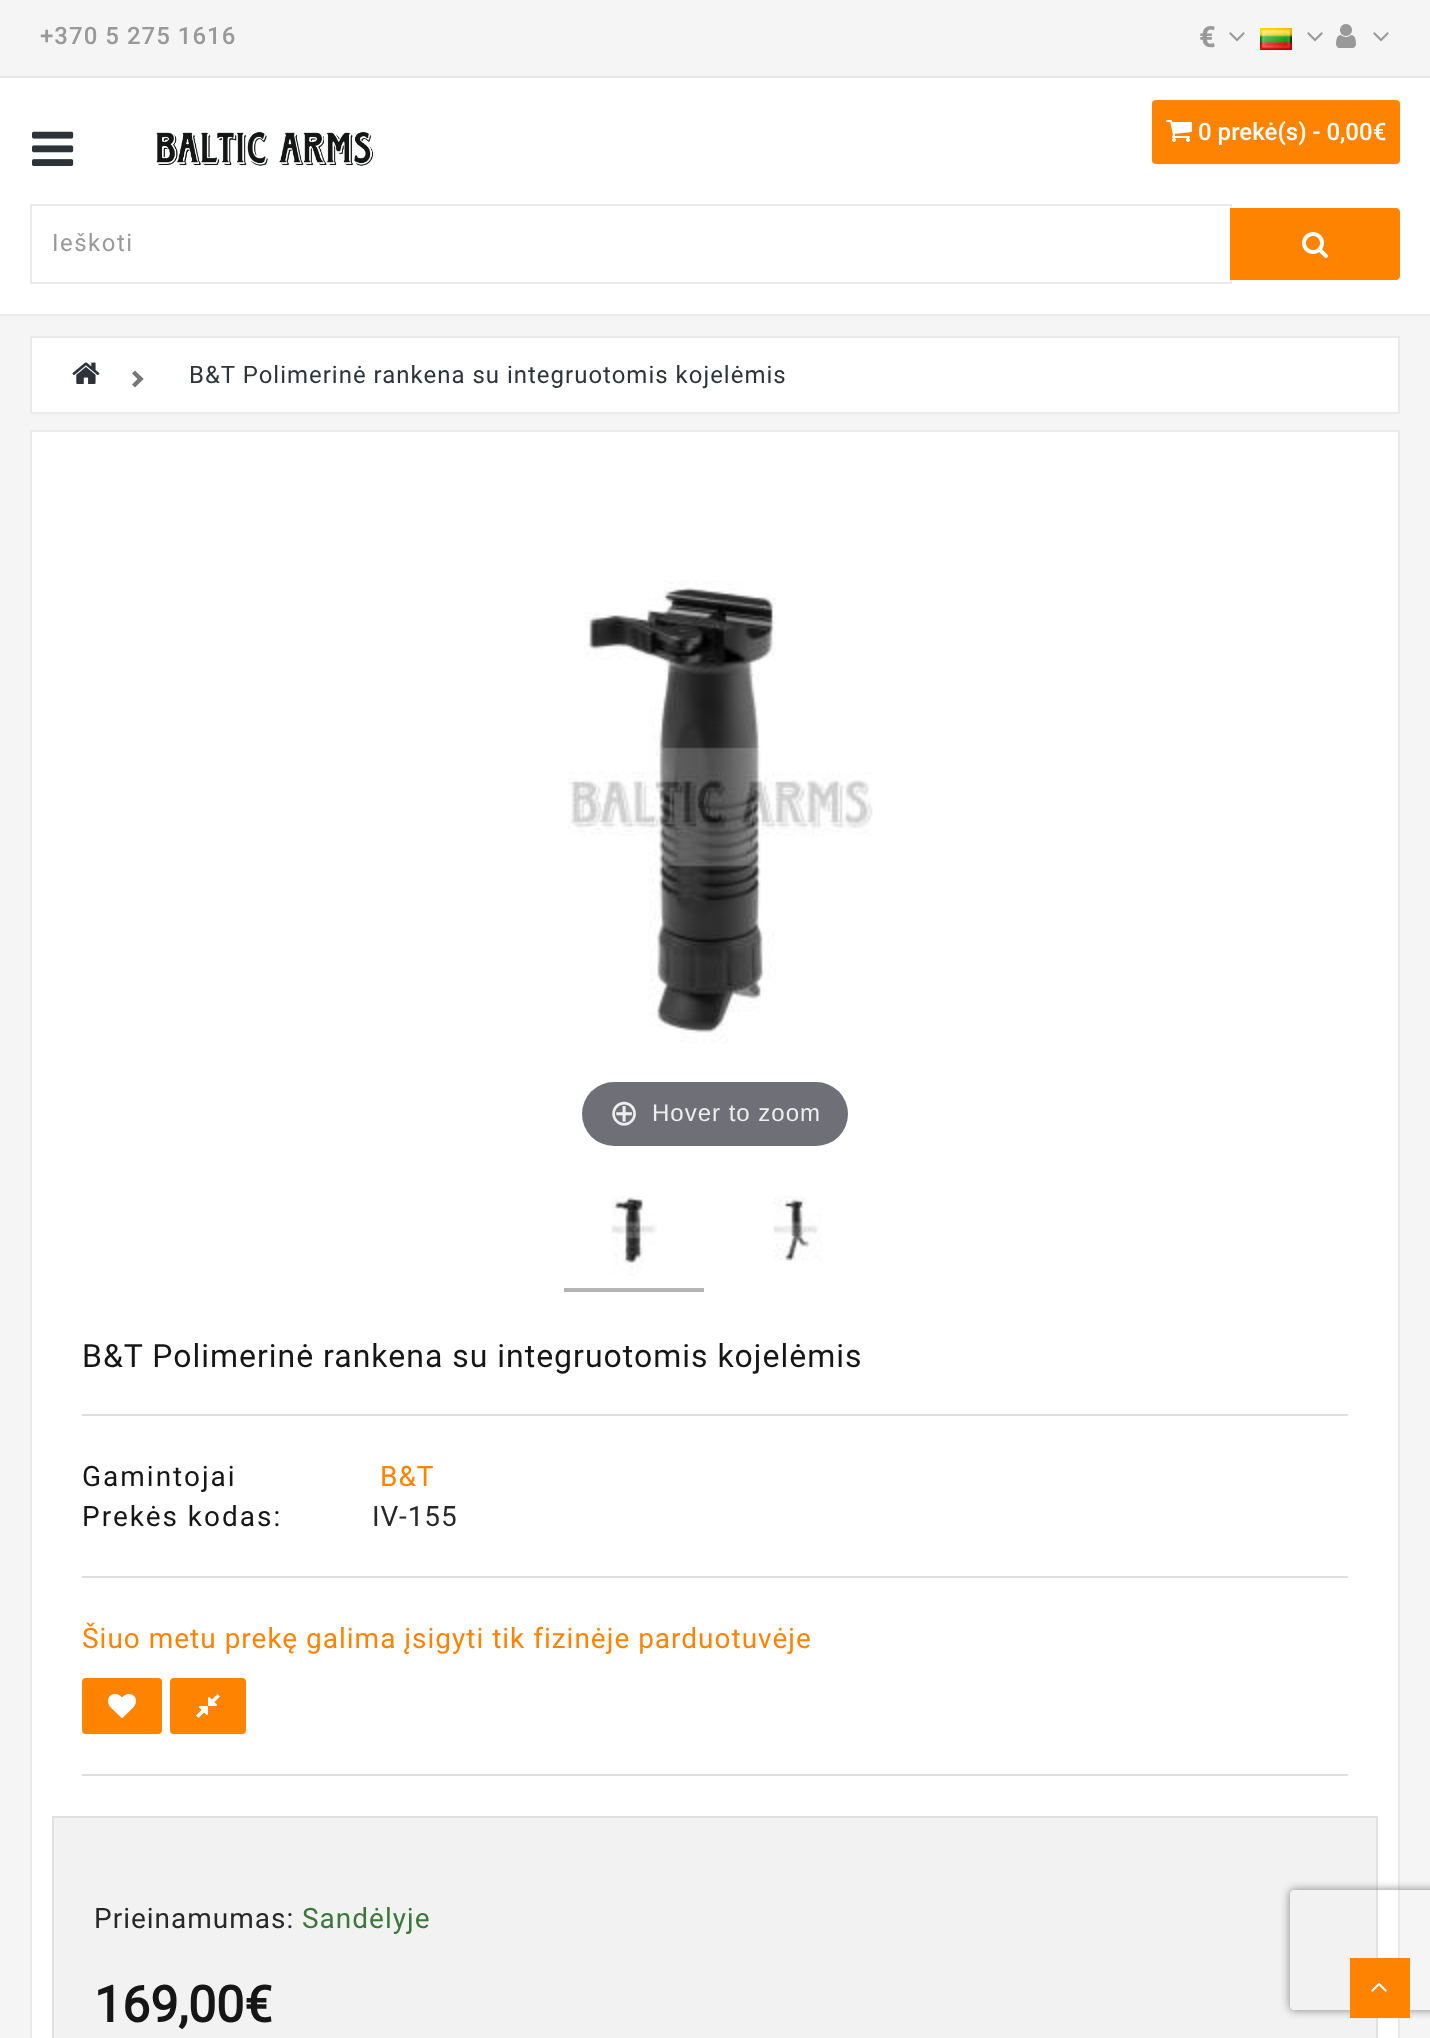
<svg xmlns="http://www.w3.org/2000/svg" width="1430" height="2038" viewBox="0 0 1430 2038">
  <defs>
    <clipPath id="clip1"><path d="M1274 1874H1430V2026H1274ZM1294 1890H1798C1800 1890 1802 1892 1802 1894V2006C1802 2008 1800 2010 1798 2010H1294C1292 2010 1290 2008 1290 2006V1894C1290 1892 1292 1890 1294 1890Z" clip-rule="evenodd"/></clipPath>
  </defs>
  <rect width="100%" height="100%" fill="rgb(245,245,245)"/>
  <rect x="0" y="76" width="1430" height="2" fill="rgb(229,229,229)"/>
  <text x="40" y="44" font-family="Roboto" font-size="24" font-weight="500" letter-spacing="1" fill="rgb(153,153,153)">+370 5 275 1616</text>
  <text x="1199" y="47" font-family="Roboto" font-size="28" font-weight="bold" fill="rgb(153,153,153)">€</text>
  <image x="1229" y="32" width="16" height="10" href="pic1.png"/>
  <image x="1260" y="28" width="32" height="22" href="pic2.png"/>
  <image x="1307" y="32" width="16" height="10" href="pic1.png"/>
  <image x="1336" y="24" width="20" height="24" href="pic3.png"/>
  <image x="1373" y="32" width="16" height="10" href="pic1.png"/>
  <rect x="0" y="78" width="1430" height="236" fill="rgb(255,255,255)"/>
  <image x="32" y="131" width="42" height="35" href="pic4.png"/>
  <rect x="0" y="314" width="1430" height="2" fill="rgb(234,234,234)"/>
  <image x="156" y="132" width="218" height="34" href="pic5.png"/>
  <rect x="1152" y="100" width="248" height="64" rx="4" fill="rgb(254,131,1)"/>
  <image x="1166" y="120" width="26" height="22" href="pic6.png"/>
  <text x="1198" y="140" font-family="Roboto" font-size="24" font-weight="500" fill="rgb(255,255,255)">0 prekė(s) - 0,00€</text>
  <rect x="31" y="205" width="1200" height="78" fill="none" stroke="rgb(235,235,235)" stroke-width="2"/>
  <text x="52" y="251" font-family="Roboto" font-size="24" letter-spacing="1.5" fill="rgb(153,153,153)">Ieškoti</text>
  <path d="M1230 208H1396C1398 208 1400 210 1400 212V276C1400 278 1398 280 1396 280H1230Z" fill="rgb(254,131,1)"/>
  <image x="1302" y="232" width="26" height="26" href="pic7.png"/>
  <rect x="31" y="337" width="1368" height="76" fill="rgb(255,255,255)" stroke="rgb(234,234,234)" stroke-width="2"/>
  <image x="72" y="362" width="28" height="22" href="pic8.png"/>
  <path d="M132 373.5L135 370.5L143.5 379L140.5 382Z" fill="rgb(119,119,119)"/>
  <path d="M132 384.5L140.5 376L143.5 379L135 387.5Z" fill="rgb(119,119,119)"/>
  <text x="189" y="383" font-family="Roboto" font-size="24" letter-spacing="1" fill="rgb(45,52,57)">B&amp;T Polimerinė rankena su integruotomis kojelėmis</text>
  <rect x="31" y="431" width="1368" height="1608" fill="rgb(255,255,255)" stroke="rgb(234,234,234)" stroke-width="2"/>
  <image x="568" y="580" width="305" height="464" href="pic9.png"/>
  <rect x="582" y="1082" width="266" height="64" rx="32" fill="rgb(111,112,119)"/>
  <text x="609" y="1125" font-family="DejaVu Sans" font-size="36" letter-spacing="1" fill="rgb(238,238,238)">⊕</text>
  <text x="652" y="1121" font-family="Liberation Sans" font-size="24" letter-spacing="1" fill="rgb(238,238,238)">Hover to zoom</text>
  <image x="611" y="1196" width="46" height="80" href="pic10.png"/>
  <rect x="564" y="1288" width="140" height="4" fill="rgb(180,180,180)"/>
  <image x="773" y="1196" width="49" height="65" href="pic11.png"/>
  <text x="82" y="1367" font-family="Roboto" font-size="32" letter-spacing="1" fill="rgb(22,22,22)">B&amp;T Polimerinė rankena su integruotomis kojelėmis</text>
  <rect x="82" y="1414" width="1266" height="2" fill="rgb(223,223,223)"/>
  <text x="82" y="1486" font-family="Roboto" font-size="28" letter-spacing="2" fill="rgb(22,22,22)">Gamintojai</text>
  <text x="380" y="1486" font-family="Roboto" font-size="28" letter-spacing="1" fill="rgb(254,131,1)">B&amp;T</text>
  <text x="82" y="1526" font-family="Roboto" font-size="28" letter-spacing="2" fill="rgb(22,22,22)">Prekės kodas:</text>
  <text x="372" y="1526" font-family="Roboto" font-size="28" letter-spacing="1" fill="rgb(40,40,40)">IV-155</text>
  <rect x="82" y="1576" width="1266" height="2" fill="rgb(223,223,223)"/>
  <text x="82" y="1648" font-family="Roboto" font-size="28" letter-spacing="1" fill="rgb(254,131,1)">Šiuo metu prekę galima įsigyti tik fizinėje parduotuvėje</text>
  <rect x="82" y="1678" width="80" height="56" rx="4" fill="rgb(254,131,1)"/>
  <image x="108" y="1694" width="28" height="24" href="pic12.png"/>
  <rect x="170" y="1678" width="76" height="56" rx="4" fill="rgb(254,131,1)"/>
  <image x="196" y="1694" width="24" height="24" href="pic13.png"/>
  <rect x="82" y="1774" width="1266" height="2" fill="rgb(223,223,223)"/>
  <rect x="53" y="1817" width="1324" height="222" fill="rgb(242,242,242)" stroke="rgb(225,225,225)" stroke-width="2"/>
  <text x="94" y="1928" font-family="Roboto" font-size="28" letter-spacing="1" fill="rgb(40,40,40)">Prieinamumas:</text>
  <text x="302" y="1928" font-family="Roboto" font-size="28" letter-spacing="1" fill="rgb(60,118,61)">Sandėlyje</text>
  <text x="94" y="2022" font-family="'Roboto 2'" font-size="50" font-weight="bold" fill="rgb(22,22,22)">169,00€</text>
  <g clip-path="url(#clip1)">
    <rect x="1290" y="1890" width="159" height="120" rx="4" fill="rgb(128,128,128)" filter="blur(5px)"/>
  </g>
  <rect x="1350" y="1958" width="60" height="60" fill="rgb(254,131,1)"/>
  <image x="1371" y="1982" width="16" height="10" href="pic14.png"/>
</svg>
